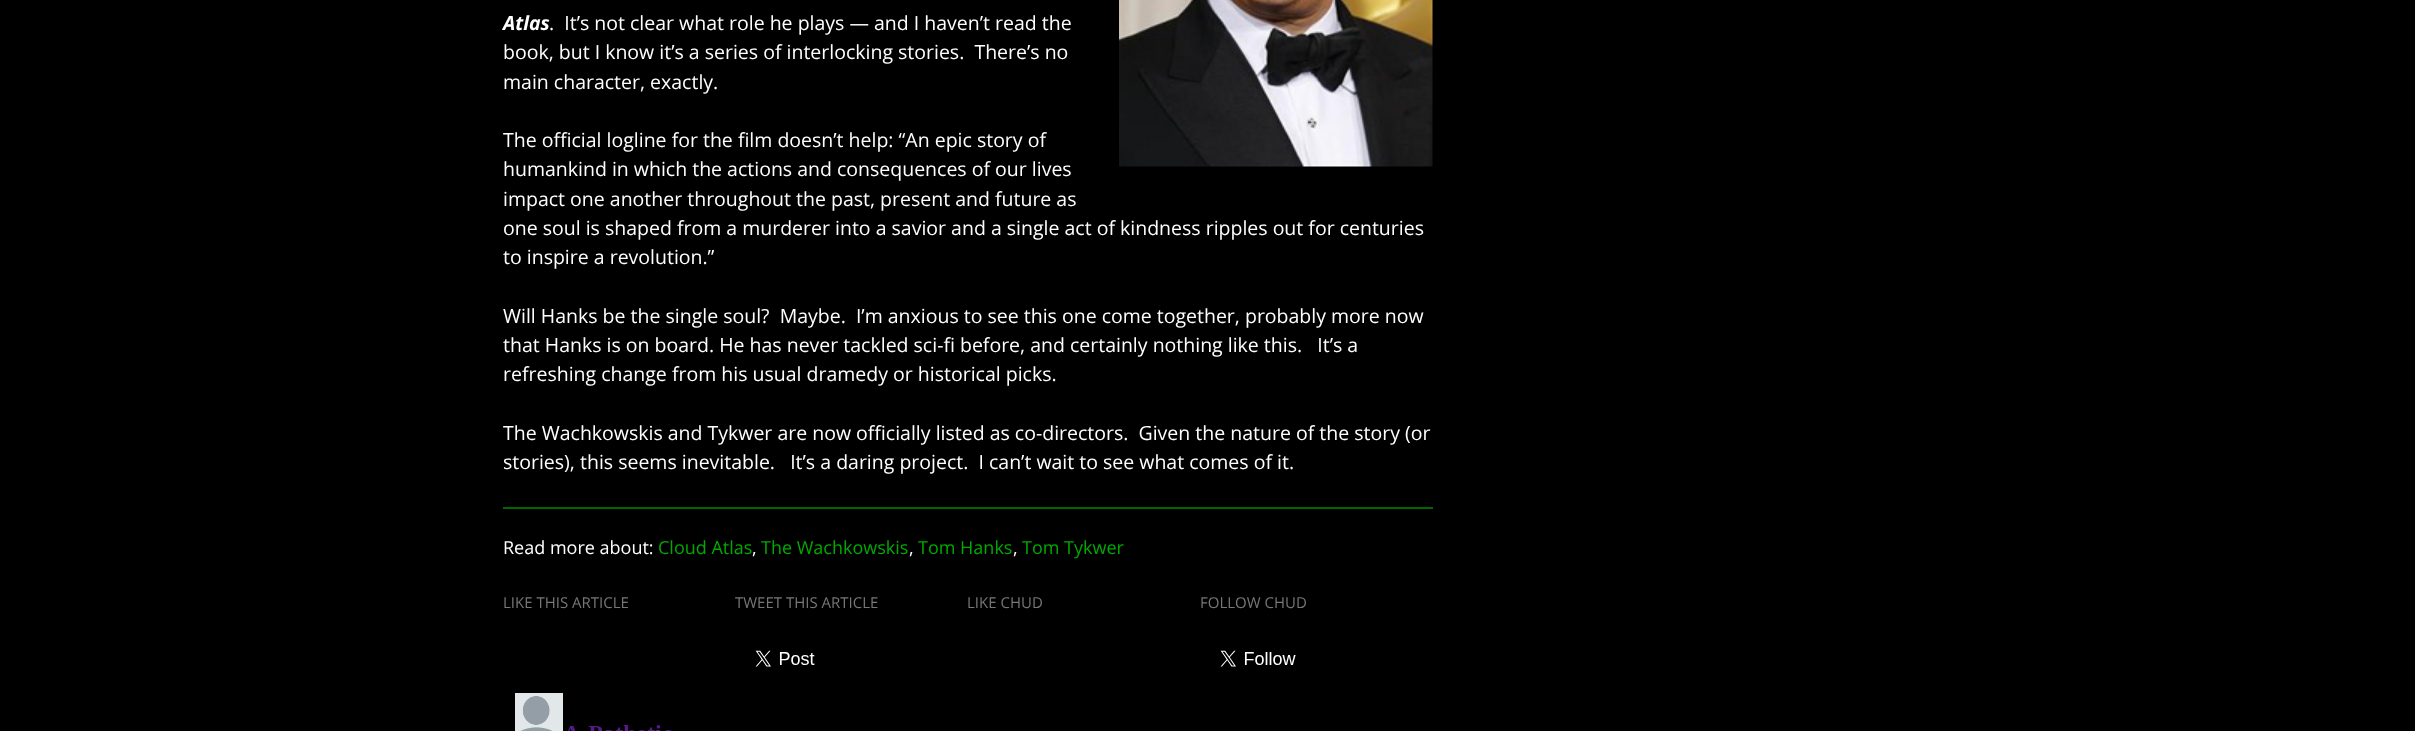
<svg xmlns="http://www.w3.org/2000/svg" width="2415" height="731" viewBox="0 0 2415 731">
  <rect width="100%" height="100%" fill="rgb(0,0,0)"/>
  <text x="503" y="30" font-family="Open Sans" font-size="19.5" font-weight="bold" font-style="italic" fill="rgb(255,255,255)">Atlas</text>
  <g font-family="Open Sans" font-size="19.5" fill="rgb(255,255,255)">
    <text x="549" y="30" xml:space="preserve">.  It’s not clear what role he plays — and I haven’t read the</text>
    <text xml:space="preserve"><tspan x="503" y="59">book, but I know it’s a series of interlocking stories.  There’s no</tspan><tspan x="503" y="89">main character, exactly.</tspan></text>
  </g>
  <image x="1119" y="0" width="314" height="167" href="pic1.png"/>
  <g font-family="Open Sans" font-size="19.5" fill="rgb(255,255,255)">
    <text>
      <tspan x="503" y="147">The official logline for the film doesn’t help: “An epic story of</tspan>
      <tspan x="503" y="176">humankind in which the actions and consequences of our lives</tspan>
      <tspan x="503" y="206">impact one another throughout the past, present and future as</tspan>
      <tspan x="503" y="235">one soul is shaped from a murderer into a savior and a single act of kindness ripples out for centuries</tspan>
      <tspan x="503" y="264">to inspire a revolution.”</tspan>
    </text>
    <text xml:space="preserve"><tspan x="503" y="323">Will Hanks be the single soul?  Maybe.  I’m anxious to see this one come together, probably more now</tspan><tspan x="503" y="352">that Hanks is on board. He has never tackled sci-fi before, and certainly nothing like this.   It’s a</tspan><tspan x="503" y="381">refreshing change from his usual dramedy or historical picks.</tspan></text>
    <text xml:space="preserve"><tspan x="503" y="440">The Wachkowskis and Tykwer are now officially listed as co-directors.  Given the nature of the story (or</tspan><tspan x="503" y="469">stories), this seems inevitable.   It’s a daring project.  I can’t wait to see what comes of it.</tspan></text>
  </g>
  <rect x="503" y="507" width="930" height="2" fill="rgb(0,102,0)"/>
  <text x="503" y="554" font-family="Open Sans" font-size="18" fill="rgb(255,255,255)">Read more about:</text>
  <text x="658" y="554" font-family="Open Sans" font-size="18" fill="rgb(0,170,0)">Cloud Atlas</text>
  <text x="752" y="554" font-family="Open Sans" font-size="18" fill="rgb(255,255,255)">,</text>
  <text x="761" y="554" font-family="Open Sans" font-size="18" fill="rgb(0,170,0)">The Wachkowskis</text>
  <text x="909" y="554" font-family="Open Sans" font-size="18" fill="rgb(255,255,255)">,</text>
  <text x="918" y="554" font-family="Open Sans" font-size="18" fill="rgb(0,170,0)">Tom Hanks</text>
  <text x="1013" y="554" font-family="Open Sans" font-size="18" fill="rgb(255,255,255)">,</text>
  <text x="1022" y="554" font-family="Open Sans" font-size="18" fill="rgb(0,170,0)">Tom Tykwer</text>
  <g font-family="Open Sans" font-size="15" fill="rgb(119,119,119)">
    <text x="503" y="608">LIKE THIS ARTICLE</text>
    <text x="735" y="608">TWEET THIS ARTICLE</text>
  </g>
  <image x="755" y="650" width="60" height="17" href="pic2.png"/>
  <g font-family="Open Sans" font-size="15" fill="rgb(119,119,119)">
    <text x="967" y="608">LIKE CHUD</text>
    <text x="1200" y="608">FOLLOW CHUD</text>
  </g>
  <image x="1220" y="650" width="76" height="17" href="pic3.png"/>
  <image x="515" y="693" width="157" height="38" href="pic4.png"/>
</svg>
